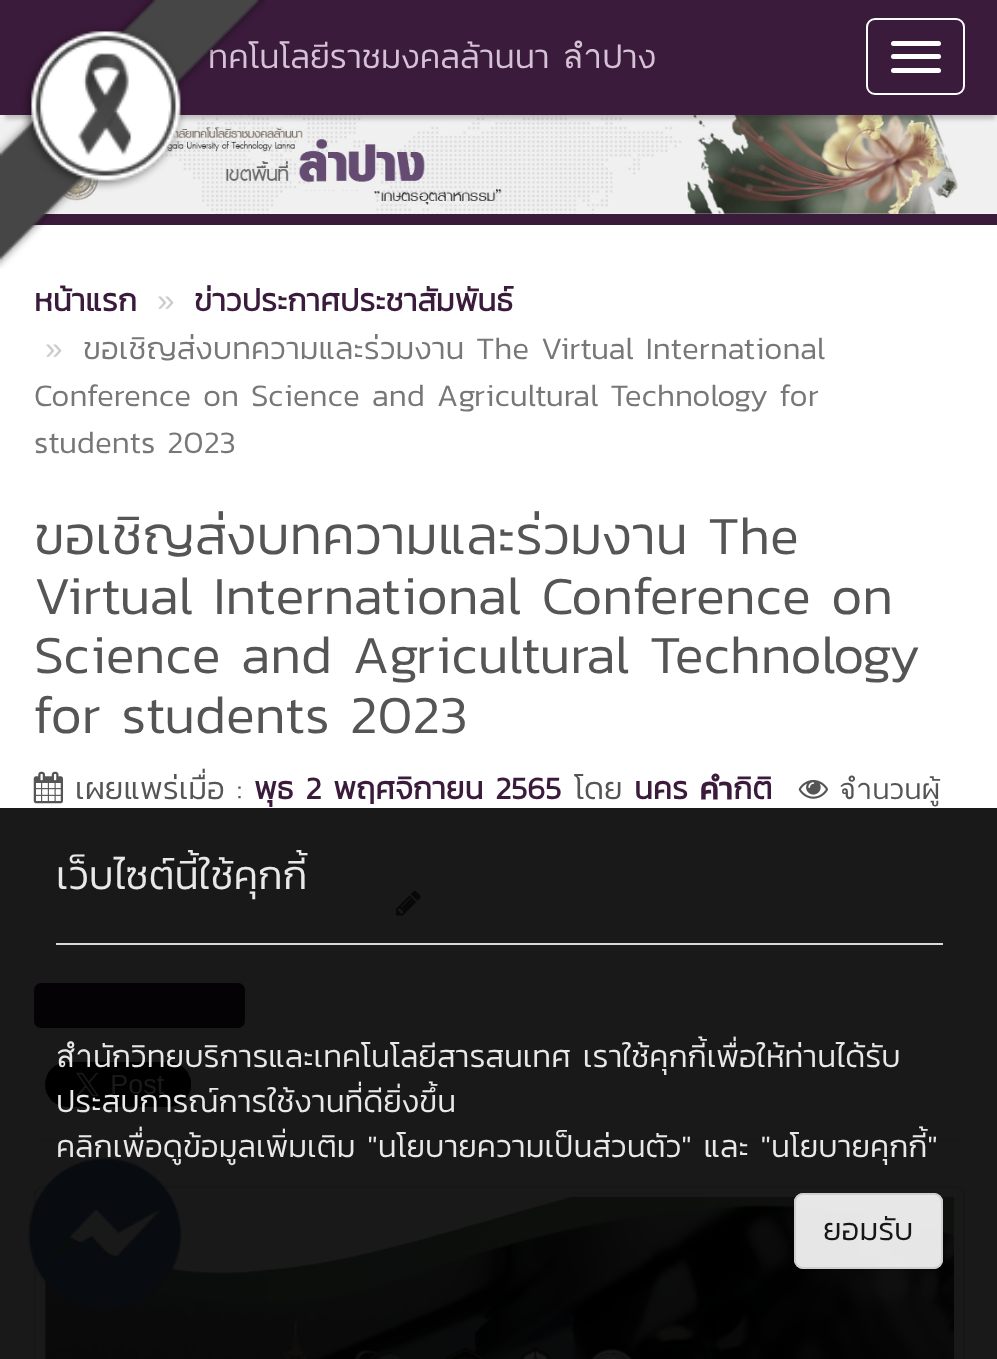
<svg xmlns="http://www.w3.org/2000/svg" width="997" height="1359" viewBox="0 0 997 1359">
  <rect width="100%" height="100%" fill="rgb(255,255,255)"/>
  <image x="0" y="115" width="997" height="99" href="pic2.png"/>
  <rect x="5" y="14" width="990" height="105" fill="rgba(0,0,0,0.2)" filter="blur(2px)"/>
  <rect x="0" y="0" width="997" height="115" fill="rgb(59,27,59)"/>
  <text x="208" y="68" font-family="Kanit" font-size="33.75" font-weight="300" fill="rgb(214,194,214)">ทคโนโลยีราชมงคลล้านนา ลำปาง</text>
  <rect x="31" y="214" width="966" height="11" fill="rgb(59,27,59)"/>
  <image x="0" y="0" width="266" height="269" href="pic1.png"/>
  <rect x="867" y="19" width="97" height="75" rx="8" fill="none" stroke="rgb(255,255,255)" stroke-width="2"/>
  <rect x="891" y="41" width="50" height="5" rx="2.5" fill="rgb(255,255,255)"/>
  <rect x="891" y="54" width="50" height="5" rx="2.5" fill="rgb(255,255,255)"/>
  <rect x="891" y="68" width="50" height="5" rx="2.5" fill="rgb(255,255,255)"/>
  <text x="34" y="311" font-family="Kanit" font-size="31.5" font-weight="bold" fill="rgb(59,27,59)">หน้าแรก</text>
  <text x="157" y="311" font-family="Liberation Sans" font-size="31.5" fill="rgb(204,204,204)">»</text>
  <text x="194" y="311" font-family="Kanit" font-size="31.5" font-weight="bold" fill="rgb(59,27,59)">ข่าวประกาศประชาสัมพันธ์</text>
  <text x="45" y="359" font-family="Liberation Sans" font-size="31.5" fill="rgb(204,204,204)">»</text>
  <g font-family="Kanit" font-size="31.5" font-weight="300" fill="rgb(119,119,119)">
    <text x="83" y="359">ขอเชิญส่งบทความและร่วมงาน The Virtual International</text>
    <text>
      <tspan x="34" y="406">Conference on Science and Agricultural Technology for</tspan>
      <tspan x="34" y="453">students 2023</tspan>
    </text>
  </g>
  <g font-family="Kanit" font-size="54" font-weight="300" fill="rgb(85,85,85)">
    <text>
      <tspan x="34" y="554">ขอเชิญส่งบทความและร่วมงาน The</tspan>
      <tspan x="34" y="614">Virtual International Conference on</tspan>
      <tspan x="34" y="673">Science and Agricultural Technology</tspan>
      <tspan x="34" y="733">for students 2023</tspan>
    </text>
  </g>
  <image x="33" y="771" width="30" height="33" href="pic3.png"/>
  <text x="75" y="799" font-family="Kanit" font-size="31.5" font-weight="300" fill="rgb(85,85,85)">เผยแพร่เมื่อ :</text>
  <text x="254" y="799" font-family="Kanit" font-size="31.5" font-weight="bold" fill="rgb(59,27,59)">พุธ 2 พฤศจิกายน 2565</text>
  <text x="574" y="799" font-family="Kanit" font-size="31.5" font-weight="300" fill="rgb(85,85,85)">โดย</text>
  <text x="634" y="799" font-family="Kanit" font-size="31.5" font-weight="bold" fill="rgb(59,27,59)">นคร คำกิติ</text>
  <image x="798" y="779" width="30" height="20" href="pic4.png"/>
  <text x="839" y="799" font-family="Kanit" font-size="29" font-weight="300" fill="rgb(85,85,85)">จำนวนผู้</text>
  <image x="396" y="890" width="25" height="26" href="pic5.png"/>
  <rect x="35" y="984" width="209" height="43" rx="6" fill="rgb(59,27,59)" stroke="rgb(59,27,59)" stroke-width="2"/>
  <image x="45" y="1062" width="147" height="45" href="pic6.png"/>
  <rect x="34" y="1139" width="931" height="2" fill="rgb(238,238,238)"/>
  <rect x="35" y="1187" width="929" height="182" rx="8" fill="none" stroke="rgb(221,221,221)" stroke-width="2"/>
  <image x="45" y="1197" width="909" height="162" href="pic7.png"/>
  <image x="27" y="1156" width="155" height="155" href="pic8.png"/>
  <rect x="0" y="808" width="997" height="551" fill="rgba(0,0,0,0.9)"/>
  <text x="56" y="889" font-family="Kanit" font-size="40.5" font-weight="300" fill="rgb(232,232,232)">เว็บไซต์นี้ใช้คุกกี้</text>
  <rect x="56" y="943" width="887" height="2" fill="rgba(238,238,238,0.9)"/>
  <g font-family="Kanit" font-size="31.5" font-weight="300" fill="rgb(232,232,232)">
    <text>
      <tspan x="56" y="1067">สำนักวิทยบริการและเทคโนโลยีสารสนเทศ เราใช้คุกกี้เพื่อให้ท่านได้รับ</tspan>
      <tspan x="56" y="1112">ประสบการณ์การใช้งานที่ดียิ่งขึ้น</tspan>
      <tspan x="56" y="1157">คลิกเพื่อดูข้อมูลเพิ่มเติม "นโยบายความเป็นส่วนตัว" และ "นโยบายคุกกี้"</tspan>
    </text>
  </g>
  <rect x="794" y="1193" width="149" height="76" rx="9" fill="rgba(255,255,255,0.9)"/>
  <rect x="795" y="1194" width="147" height="74" rx="8" fill="none" stroke="rgba(204,204,204,0.9)" stroke-width="2"/>
  <text x="823" y="1240" font-family="Kanit" font-size="31.5" font-weight="300" fill="rgb(23,23,23)">ยอมรับ</text>
</svg>
